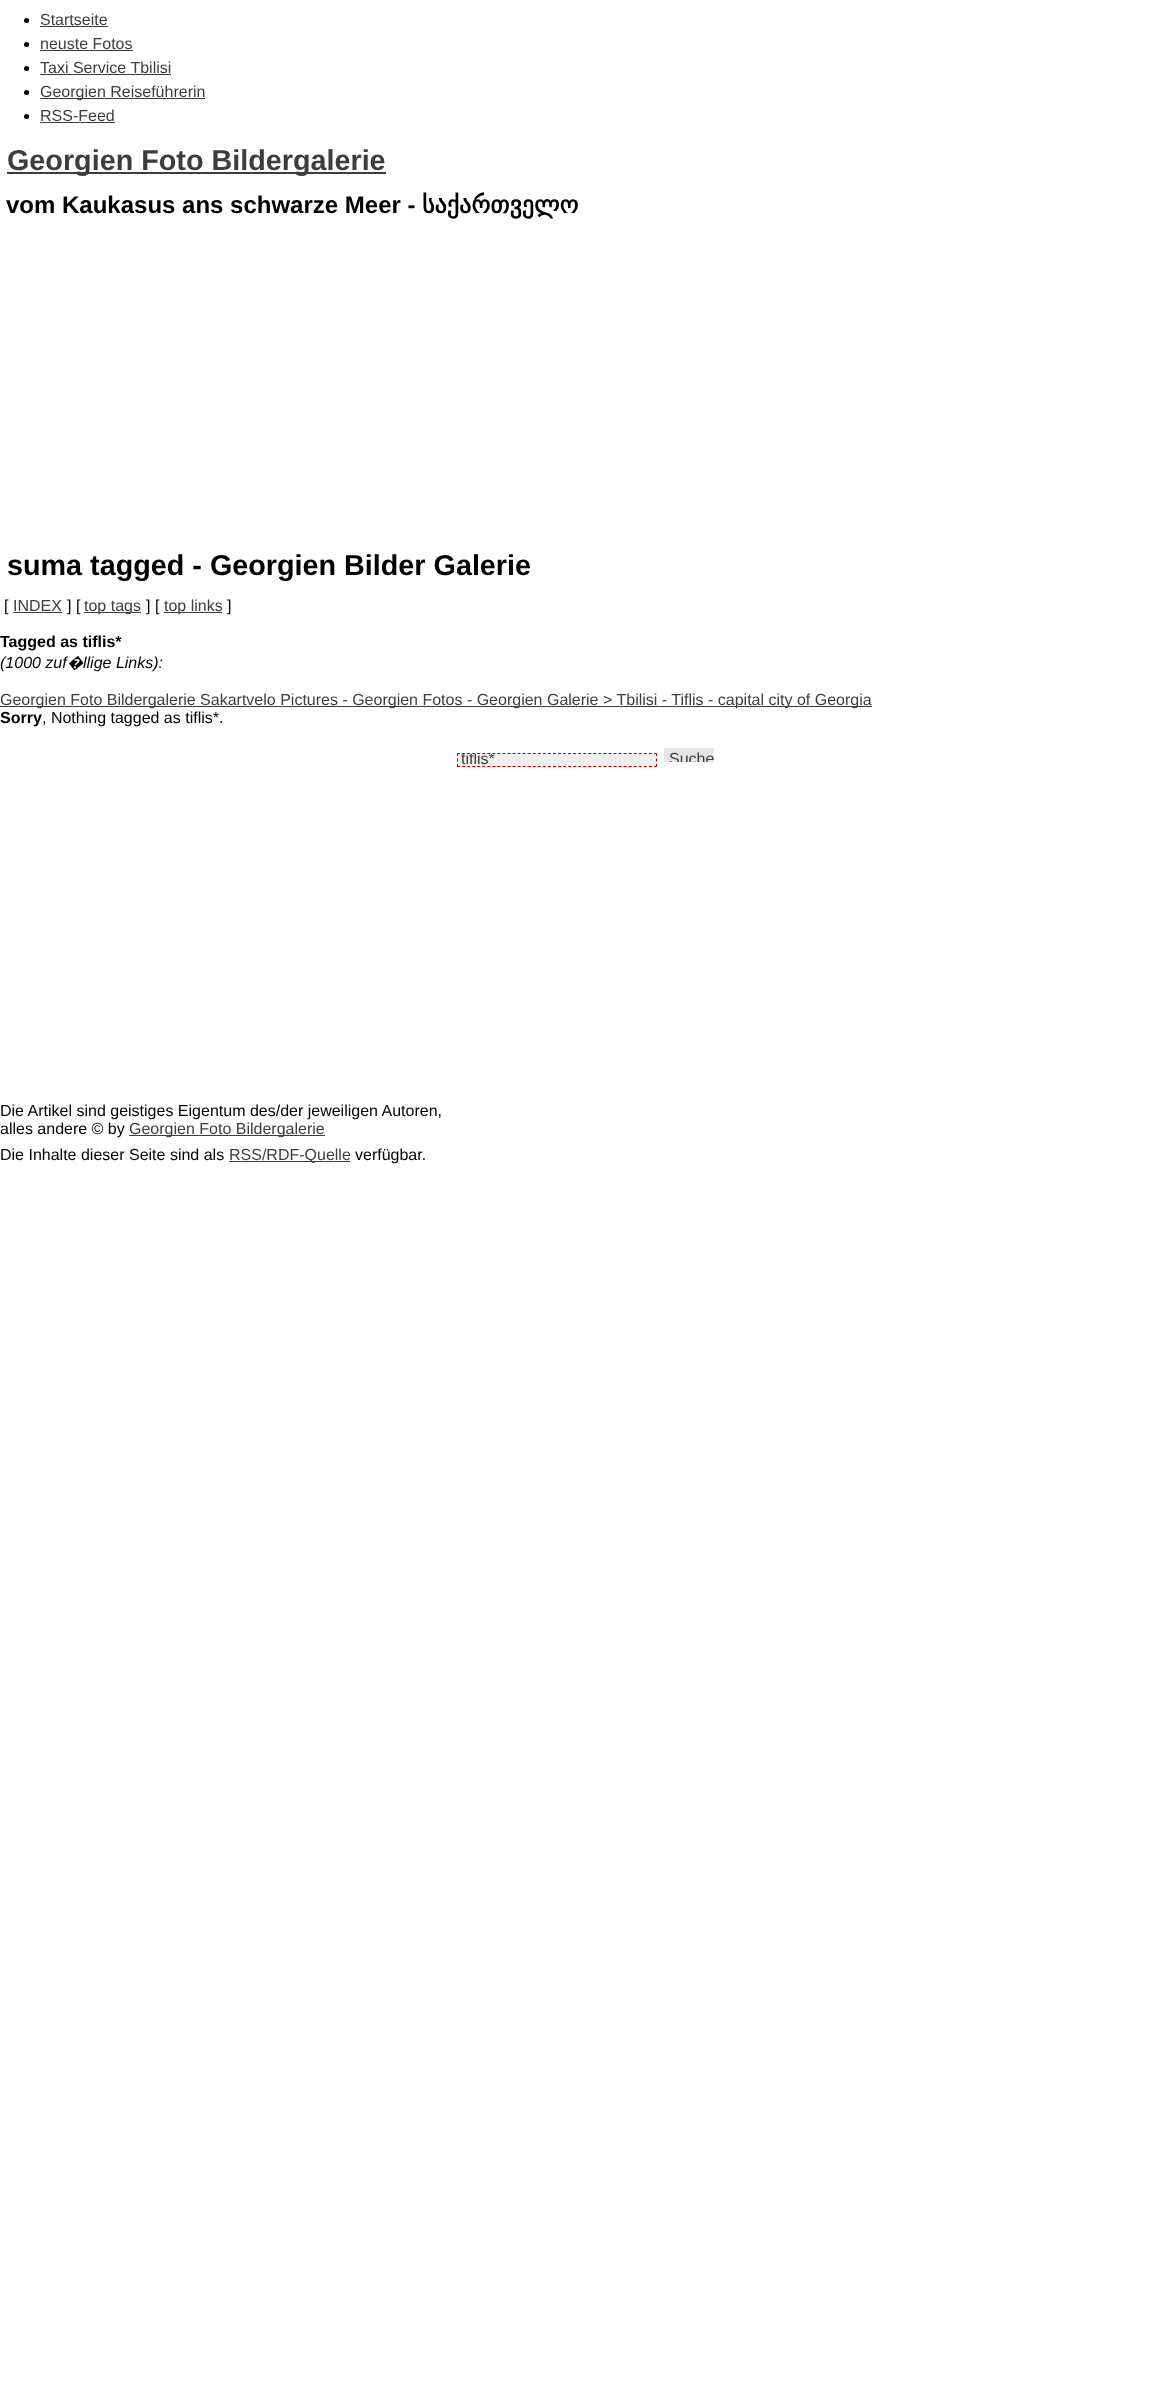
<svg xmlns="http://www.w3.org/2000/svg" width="1174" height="2397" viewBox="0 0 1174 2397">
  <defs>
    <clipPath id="clip1"><rect x="461" y="754" width="191" height="12"/></clipPath>
    <clipPath id="clip2"><rect x="664" y="748" width="50" height="14"/></clipPath>
  </defs>
  <rect width="100%" height="100%" fill="rgb(255,255,255)"/>
  <circle cx="26.5" cy="20.5" r="2.5" fill="rgb(0,0,0)"/>
  <text x="40" y="25" font-family="Liberation Sans" font-size="16" fill="rgb(61,61,61)">Startseite</text>
  <rect x="40" y="26" width="68" height="1" fill="rgb(61,61,61)"/>
  <circle cx="26.5" cy="44.5" r="2.5" fill="rgb(0,0,0)"/>
  <text x="40" y="49" font-family="Liberation Sans" font-size="16" fill="rgb(61,61,61)">neuste Fotos</text>
  <rect x="40" y="50" width="93" height="1" fill="rgb(61,61,61)"/>
  <circle cx="26.5" cy="68.5" r="2.5" fill="rgb(0,0,0)"/>
  <text x="40" y="73" font-family="Liberation Sans" font-size="16" fill="rgb(61,61,61)">Taxi Service Tbilisi</text>
  <rect x="40" y="74" width="131" height="1" fill="rgb(61,61,61)"/>
  <circle cx="26.5" cy="92.5" r="2.5" fill="rgb(0,0,0)"/>
  <rect x="40" y="98" width="165" height="1" fill="rgb(61,61,61)"/>
  <text x="40" y="97" font-family="Liberation Sans" font-size="16" fill="rgb(61,61,61)">Georgien Reiseführerin</text>
  <circle cx="26.5" cy="116.5" r="2.5" fill="rgb(0,0,0)"/>
  <text x="40" y="121" font-family="Liberation Sans" font-size="16" fill="rgb(61,61,61)">RSS-Feed</text>
  <rect x="40" y="122" width="75" height="1" fill="rgb(61,61,61)"/>
  <rect x="7" y="172" width="379" height="2" fill="rgb(61,61,61)"/>
  <text x="7" y="170" font-family="Liberation Sans" font-size="28.75" font-weight="bold" fill="rgb(61,61,61)">Georgien Foto Bildergalerie</text>
  <text x="6" y="213" font-family="Liberation Sans" font-size="24" font-weight="bold" fill="rgb(0,0,0)">vom Kaukasus ans schwarze Meer -</text>
  <text x="422" y="213" font-family="DejaVu Sans" font-size="24" font-weight="bold" fill="rgb(0,0,0)">საქართველო</text>
  <text x="7" y="575" font-family="Liberation Sans" font-size="28.75" font-weight="bold" fill="rgb(0,0,0)">suma tagged - Georgien Bilder Galerie</text>
  <text x="4" y="611" font-family="Liberation Sans" font-size="16" fill="rgb(0,0,0)">[</text>
  <text x="13" y="611" font-family="Liberation Sans" font-size="16" fill="rgb(61,61,61)">INDEX</text>
  <rect x="13" y="612" width="49" height="1" fill="rgb(61,61,61)"/>
  <text x="67" y="611" font-family="Liberation Sans" font-size="16" fill="rgb(0,0,0)">] [</text>
  <rect x="84" y="612" width="57" height="1" fill="rgb(61,61,61)"/>
  <text x="84" y="611" font-family="Liberation Sans" font-size="16" fill="rgb(61,61,61)">top tags</text>
  <text x="146" y="611" font-family="Liberation Sans" font-size="16" fill="rgb(0,0,0)">] [</text>
  <rect x="164" y="612" width="58" height="1" fill="rgb(61,61,61)"/>
  <text x="164" y="611" font-family="Liberation Sans" font-size="16" fill="rgb(61,61,61)">top links</text>
  <text x="227" y="611" font-family="Liberation Sans" font-size="16" fill="rgb(0,0,0)">]</text>
  <text x="0" y="647" font-family="Liberation Sans" font-size="16" font-weight="bold" fill="rgb(0,0,0)">Tagged as tiflis*</text>
  <text x="0" y="668" font-family="Liberation Sans" font-size="16" font-style="italic" fill="rgb(0,0,0)">(1000 zuf</text>
  <text x="67" y="668" font-family="Noto Sans" font-size="16" font-style="italic" fill="rgb(0,0,0)">�</text>
  <text x="83" y="668" font-family="Liberation Sans" font-size="16" font-style="italic" fill="rgb(0,0,0)">llige Links):</text>
  <rect x="0" y="706" width="872" height="1" fill="rgb(61,61,61)"/>
  <text x="0" y="705" font-family="Liberation Sans" font-size="16" fill="rgb(61,61,61)">Georgien Foto Bildergalerie Sakartvelo Pictures - Georgien Fotos - Georgien Galerie &gt; Tbilisi - Tiflis - capital city of Georgia</text>
  <text x="0" y="723" font-family="Liberation Sans" font-size="16" font-weight="bold" fill="rgb(0,0,0)">Sorry</text>
  <text x="42" y="723" font-family="Liberation Sans" font-size="16" fill="rgb(0,0,0)">, Nothing tagged as tiflis*.</text>
  <rect x="457" y="753" width="200" height="14" fill="rgb(240,240,240)"/>
  <path d="M457 753.5H657" fill="none" stroke="rgb(204,0,0)" stroke-dasharray="3 2.05"/>
  <path d="M656.5 753V756M656.5 758.5V761.5M656.5 764V767" fill="none" stroke="rgb(204,0,0)"/>
  <path d="M457 766.5H657" fill="none" stroke="rgb(204,0,0)" stroke-dasharray="3 2.05"/>
  <path d="M457.5 753V756M457.5 758.5V761.5M457.5 764V767" fill="none" stroke="rgb(204,0,0)"/>
  <g clip-path="url(#clip1)">
    <text x="461" y="764" font-family="Liberation Sans" font-size="16" fill="rgb(61,61,61)">tiflis*</text>
  </g>
  <rect x="664" y="748" width="50" height="14" fill="rgb(230,230,230)"/>
  <g clip-path="url(#clip2)">
    <text x="669" y="764" font-family="Liberation Sans" font-size="16" fill="rgb(61,61,61)">Suche</text>
  </g>
  <g font-family="Liberation Sans" font-size="16" fill="rgb(0,0,0)">
    <text>
      <tspan x="0" y="1116">Die Artikel sind geistiges Eigentum des/der jeweiligen Autoren,</tspan>
      <tspan x="0" y="1134">alles andere © by</tspan>
    </text>
  </g>
  <rect x="129" y="1135" width="196" height="1" fill="rgb(61,61,61)"/>
  <text x="129" y="1134" font-family="Liberation Sans" font-size="16" fill="rgb(61,61,61)">Georgien Foto Bildergalerie</text>
  <text x="0" y="1160" font-family="Liberation Sans" font-size="16" fill="rgb(0,0,0)">Die Inhalte dieser Seite sind als</text>
  <rect x="229" y="1161" width="121" height="1" fill="rgb(61,61,61)"/>
  <text x="229" y="1160" font-family="Liberation Sans" font-size="16" fill="rgb(61,61,61)">RSS/RDF-Quelle</text>
  <text x="355" y="1160" font-family="Liberation Sans" font-size="16" fill="rgb(0,0,0)">verfügbar.</text>
</svg>
